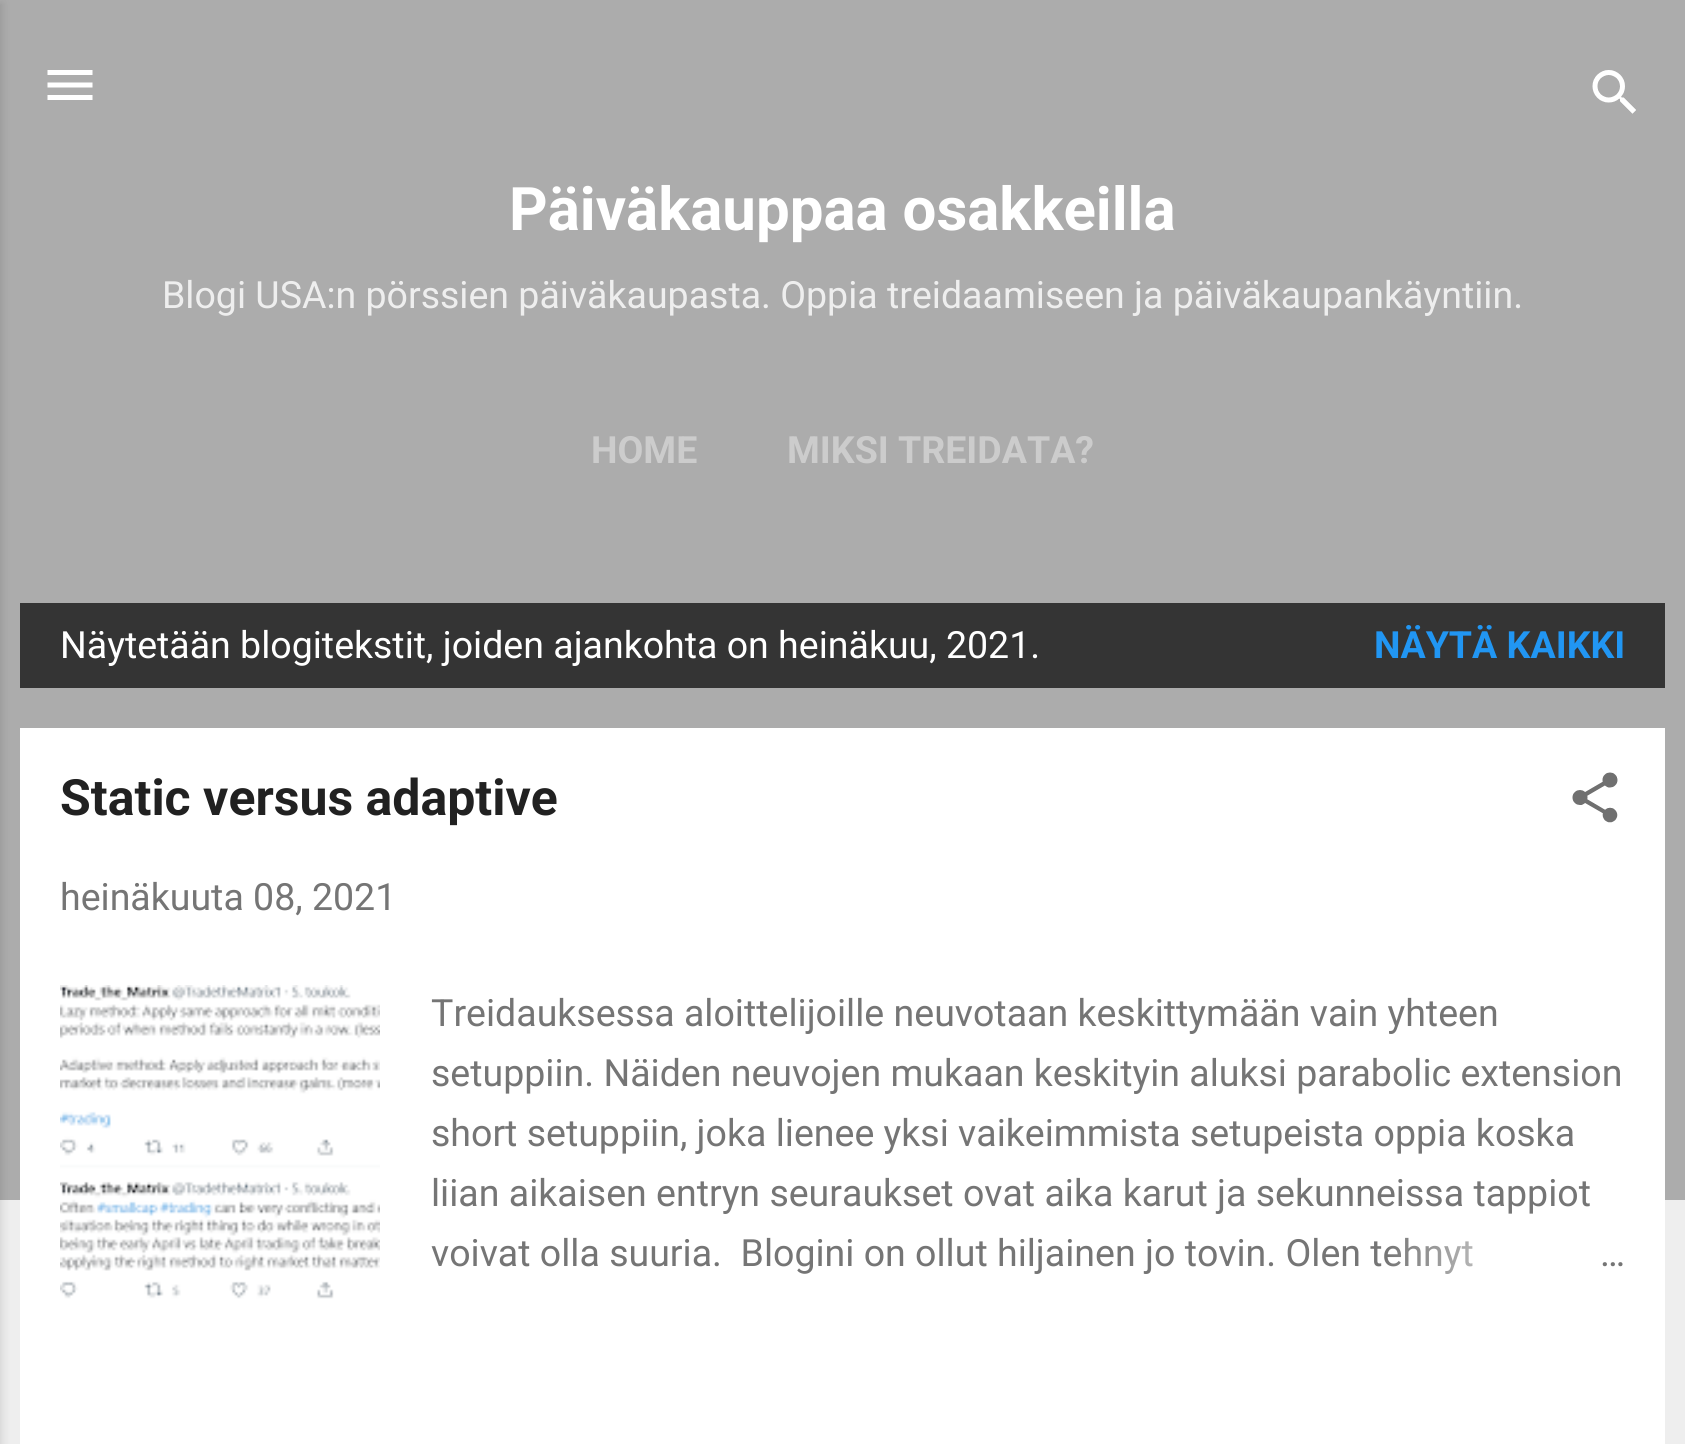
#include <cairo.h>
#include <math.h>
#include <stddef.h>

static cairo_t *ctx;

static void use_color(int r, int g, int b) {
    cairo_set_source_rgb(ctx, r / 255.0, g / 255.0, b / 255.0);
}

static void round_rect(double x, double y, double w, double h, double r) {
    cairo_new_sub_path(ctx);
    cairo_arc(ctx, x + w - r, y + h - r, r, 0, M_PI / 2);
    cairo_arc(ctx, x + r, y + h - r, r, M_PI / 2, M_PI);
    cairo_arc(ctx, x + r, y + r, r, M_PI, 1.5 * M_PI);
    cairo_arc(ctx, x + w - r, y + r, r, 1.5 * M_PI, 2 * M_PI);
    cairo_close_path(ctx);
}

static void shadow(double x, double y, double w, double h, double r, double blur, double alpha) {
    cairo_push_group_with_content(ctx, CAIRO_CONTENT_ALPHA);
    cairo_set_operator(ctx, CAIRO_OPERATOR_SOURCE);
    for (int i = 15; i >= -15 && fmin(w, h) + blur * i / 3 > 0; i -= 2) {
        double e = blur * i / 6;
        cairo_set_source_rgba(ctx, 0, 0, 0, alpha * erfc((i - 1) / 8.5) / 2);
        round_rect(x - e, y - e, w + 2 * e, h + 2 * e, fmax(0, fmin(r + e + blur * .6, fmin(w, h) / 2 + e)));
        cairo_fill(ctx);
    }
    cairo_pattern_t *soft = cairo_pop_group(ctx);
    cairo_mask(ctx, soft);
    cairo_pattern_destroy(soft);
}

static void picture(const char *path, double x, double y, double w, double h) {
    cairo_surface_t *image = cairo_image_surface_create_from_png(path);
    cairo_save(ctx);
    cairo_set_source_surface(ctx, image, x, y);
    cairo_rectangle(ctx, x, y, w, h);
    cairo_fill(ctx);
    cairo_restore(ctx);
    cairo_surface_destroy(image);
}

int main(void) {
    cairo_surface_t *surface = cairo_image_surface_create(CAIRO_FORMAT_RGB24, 1685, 1444);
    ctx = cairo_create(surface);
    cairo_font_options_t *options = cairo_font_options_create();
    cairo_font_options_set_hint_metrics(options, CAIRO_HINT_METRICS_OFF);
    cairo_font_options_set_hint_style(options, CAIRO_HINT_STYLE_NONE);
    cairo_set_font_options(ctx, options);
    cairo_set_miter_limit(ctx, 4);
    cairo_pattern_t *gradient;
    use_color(238, 238, 238);
    cairo_paint(ctx);
    use_color(172, 172, 172);
    cairo_rectangle(ctx, 0, 0, 1685, 1200);
    cairo_fill(ctx);
    use_color(0, 0, 0);
    shadow(-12, 3, 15, 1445, 0, 4, 0.1);
    picture("img1.png", 47, 70, 46, 30);
    picture("img2.png", 1592, 70, 44, 44);
    cairo_select_font_face(ctx, "Roboto", CAIRO_FONT_SLANT_NORMAL, CAIRO_FONT_WEIGHT_BOLD);
    cairo_set_font_size(ctx, 60);
    use_color(255, 255, 255);
    cairo_move_to(ctx, 509, 230);
    cairo_show_text(ctx, "Päiväkauppaa osakkeilla");
    cairo_select_font_face(ctx, "Roboto", CAIRO_FONT_SLANT_NORMAL, CAIRO_FONT_WEIGHT_NORMAL);
    cairo_set_font_size(ctx, 37.5);
    use_color(238, 238, 238);
    cairo_move_to(ctx, 162, 308);
    cairo_show_text(ctx, "Blogi USA:n pörssien päiväkaupasta. Oppia treidaamiseen ja päiväkaupankäyntiin.");
    cairo_select_font_face(ctx, "Roboto", CAIRO_FONT_SLANT_NORMAL, CAIRO_FONT_WEIGHT_BOLD);
    use_color(204, 204, 204);
    cairo_move_to(ctx, 591, 463);
    cairo_show_text(ctx, "HOME");
    cairo_move_to(ctx, 787, 463);
    cairo_show_text(ctx, "MIKSI TREIDATA?");
    use_color(52, 52, 52);
    cairo_rectangle(ctx, 20, 603, 1645, 85);
    cairo_fill(ctx);
    cairo_select_font_face(ctx, "Roboto", CAIRO_FONT_SLANT_NORMAL, CAIRO_FONT_WEIGHT_NORMAL);
    use_color(255, 255, 255);
    cairo_move_to(ctx, 60, 658);
    cairo_show_text(ctx, "Näytetään blogitekstit, joiden ajankohta on heinäkuu, 2021.");
    cairo_select_font_face(ctx, "Roboto", CAIRO_FONT_SLANT_NORMAL, CAIRO_FONT_WEIGHT_BOLD);
    use_color(33, 150, 243);
    cairo_move_to(ctx, 1374, 658);
    cairo_show_text(ctx, "NÄYTÄ KAIKKI");
    use_color(255, 255, 255);
    cairo_rectangle(ctx, 20, 728, 1645, 716);
    cairo_fill(ctx);
    cairo_set_font_size(ctx, 50);
    use_color(33, 33, 33);
    cairo_move_to(ctx, 60, 815);
    cairo_show_text(ctx, "Static versus adaptive");
    picture("img3.png", 1572, 772, 46, 51);
    cairo_select_font_face(ctx, "Roboto", CAIRO_FONT_SLANT_NORMAL, CAIRO_FONT_WEIGHT_NORMAL);
    cairo_set_font_size(ctx, 37.5);
    use_color(117, 117, 117);
    cairo_move_to(ctx, 60, 910);
    cairo_show_text(ctx, "heinäkuuta 08, 2021");
    picture("img4.png", 60, 985, 320, 314);
    cairo_move_to(ctx, 431, 1026);
    cairo_show_text(ctx, "Treidauksessa aloittelijoille neuvotaan keskittymään vain yhteen");
    cairo_move_to(ctx, 431, 1086);
    cairo_show_text(ctx, "setuppiin. Näiden neuvojen mukaan keskityin aluksi parabolic extension");
    cairo_move_to(ctx, 431, 1146);
    cairo_show_text(ctx, "short setuppiin, joka lienee yksi vaikeimmista setupeista oppia koska");
    cairo_move_to(ctx, 431, 1206);
    cairo_show_text(ctx, "liian aikaisen entryn seuraukset ovat aika karut ja sekunneissa tappiot");
    cairo_move_to(ctx, 431, 1266);
    cairo_show_text(ctx, "voivat olla suuria.  Blogini on ollut hiljainen jo tovin. Olen tehnyt");
    gradient = cairo_pattern_create_linear(1625, 1255, 1385, 1255);
    cairo_pattern_add_color_stop_rgba(gradient, 0, 1, 1, 1, 1);
    cairo_pattern_add_color_stop_rgba(gradient, 0.2, 1, 1, 1, 1);
    cairo_pattern_add_color_stop_rgba(gradient, 1, 1, 1, 1, 0);
    cairo_set_source(ctx, gradient);
    cairo_pattern_destroy(gradient);
    cairo_rectangle(ctx, 1389, 1238, 84, 36);
    cairo_fill(ctx);
    use_color(117, 117, 117);
    cairo_move_to(ctx, 1600, 1266);
    cairo_show_text(ctx, "…");
    cairo_surface_write_to_png(surface, "result.png");
    cairo_font_options_destroy(options);
    cairo_destroy(ctx);
    cairo_surface_destroy(surface);
    return 0;
}
